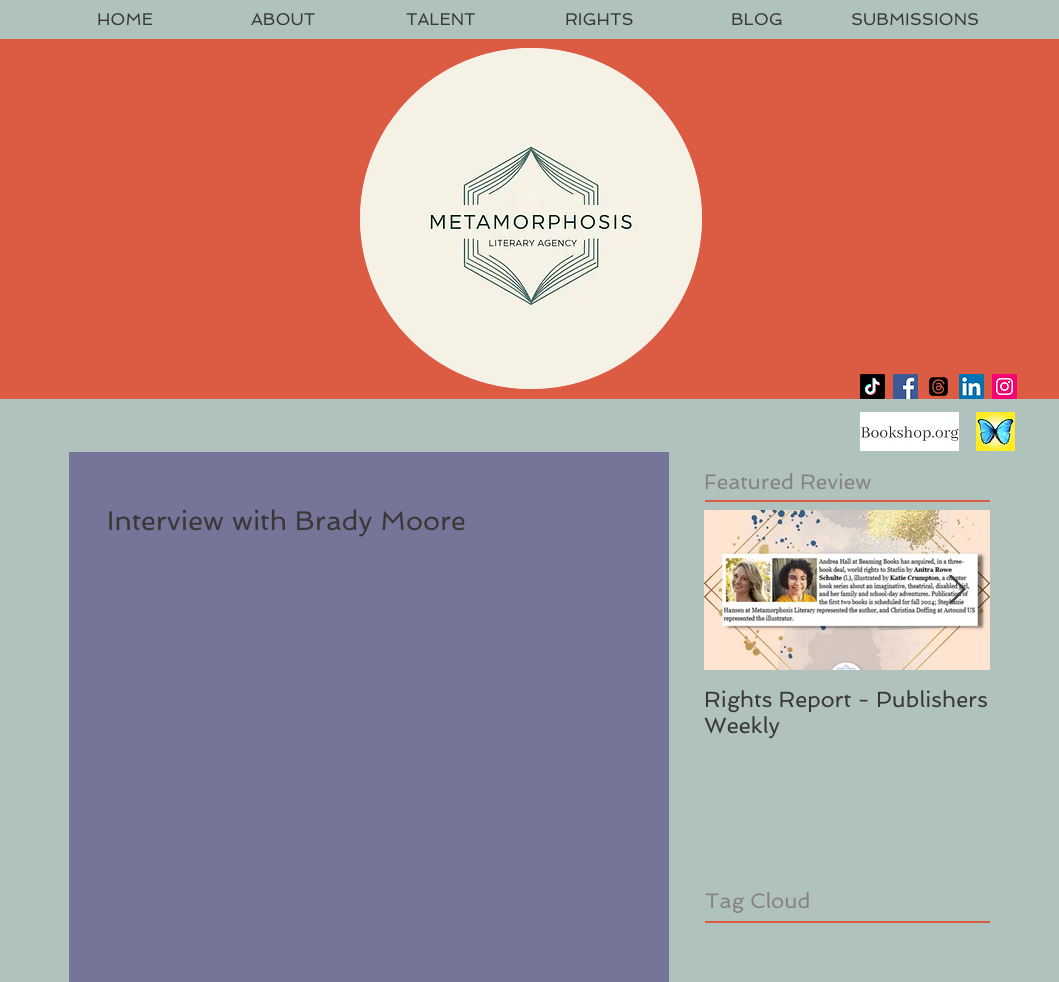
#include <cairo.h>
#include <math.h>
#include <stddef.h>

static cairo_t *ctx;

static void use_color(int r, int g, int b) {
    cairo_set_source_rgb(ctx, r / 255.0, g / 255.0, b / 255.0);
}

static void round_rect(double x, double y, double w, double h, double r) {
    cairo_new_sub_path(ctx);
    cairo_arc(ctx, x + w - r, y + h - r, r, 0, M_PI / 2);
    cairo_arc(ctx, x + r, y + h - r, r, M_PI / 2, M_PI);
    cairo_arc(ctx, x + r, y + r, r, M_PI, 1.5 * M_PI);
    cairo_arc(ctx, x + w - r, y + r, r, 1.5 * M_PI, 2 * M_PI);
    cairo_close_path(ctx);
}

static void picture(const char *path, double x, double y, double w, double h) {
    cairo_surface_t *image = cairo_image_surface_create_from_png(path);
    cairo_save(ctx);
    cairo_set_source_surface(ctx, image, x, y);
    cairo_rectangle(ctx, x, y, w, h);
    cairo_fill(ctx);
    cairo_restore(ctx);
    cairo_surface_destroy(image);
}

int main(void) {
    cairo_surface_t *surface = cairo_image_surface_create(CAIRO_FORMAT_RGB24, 1059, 982);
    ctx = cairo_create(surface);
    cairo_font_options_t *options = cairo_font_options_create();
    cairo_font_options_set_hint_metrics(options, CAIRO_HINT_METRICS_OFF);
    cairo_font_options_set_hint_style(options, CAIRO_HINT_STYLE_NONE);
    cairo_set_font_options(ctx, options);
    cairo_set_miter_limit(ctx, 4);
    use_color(176, 194, 190);
    cairo_paint(ctx);
    cairo_select_font_face(ctx, "Spinnaker", CAIRO_FONT_SLANT_NORMAL, CAIRO_FONT_WEIGHT_NORMAL);
    cairo_set_font_size(ctx, 17);
    use_color(57, 56, 56);
    cairo_move_to(ctx, 97, 25);
    cairo_show_text(ctx, "HOME");
    cairo_move_to(ctx, 251, 25);
    cairo_show_text(ctx, "ABOUT");
    cairo_move_to(ctx, 406, 25);
    cairo_show_text(ctx, "TALENT");
    cairo_move_to(ctx, 565, 25);
    cairo_show_text(ctx, "RIGHTS");
    cairo_move_to(ctx, 731, 25);
    cairo_show_text(ctx, "BLOG");
    cairo_move_to(ctx, 851, 25);
    cairo_show_text(ctx, "SUBMISSIONS");
    use_color(219, 91, 67);
    cairo_rectangle(ctx, 0, 39, 1059, 360);
    cairo_fill(ctx);
    use_color(255, 255, 255);
    round_rect(360, 48, 342, 341, 170.5);
    cairo_fill(ctx);
    picture("img1.png", 360, 48, 342, 341);
    picture("img2.png", 860, 374, 25, 25);
    picture("img3.png", 893, 374, 25, 25);
    picture("img4.png", 928, 377, 20, 19);
    picture("img5.png", 959, 374, 25, 25);
    picture("img6.png", 992, 374, 25, 25);
    picture("img7.png", 860, 412, 99, 39);
    picture("img8.png", 976, 412, 39, 39);
    cairo_set_font_size(ctx, 21);
    use_color(134, 131, 131);
    cairo_move_to(ctx, 704, 489);
    cairo_show_text(ctx, "Featured Review");
    use_color(219, 91, 67);
    cairo_rectangle(ctx, 705, 500, 285, 2);
    cairo_fill(ctx);
    use_color(118, 116, 153);
    cairo_rectangle(ctx, 69, 452, 600, 530);
    cairo_fill(ctx);
    cairo_set_font_size(ctx, 27);
    use_color(57, 56, 56);
    cairo_move_to(ctx, 107, 530);
    cairo_show_text(ctx, "Interview with Brady Moore");
    picture("img10.png", 704, 510, 286, 160);
    picture("img9.png", 949, 575, 17, 29);
    cairo_set_font_size(ctx, 22);
    cairo_move_to(ctx, 704, 707);
    cairo_show_text(ctx, "Rights Report - Publishers");
    cairo_move_to(ctx, 704, 733);
    cairo_show_text(ctx, "Weekly");
    cairo_set_font_size(ctx, 21);
    use_color(134, 131, 131);
    cairo_move_to(ctx, 705, 908);
    cairo_show_text(ctx, "Tag Cloud");
    use_color(219, 91, 67);
    cairo_rectangle(ctx, 705, 921, 285, 2);
    cairo_fill(ctx);
    cairo_surface_write_to_png(surface, "result.png");
    cairo_font_options_destroy(options);
    cairo_destroy(ctx);
    cairo_surface_destroy(surface);
    return 0;
}
